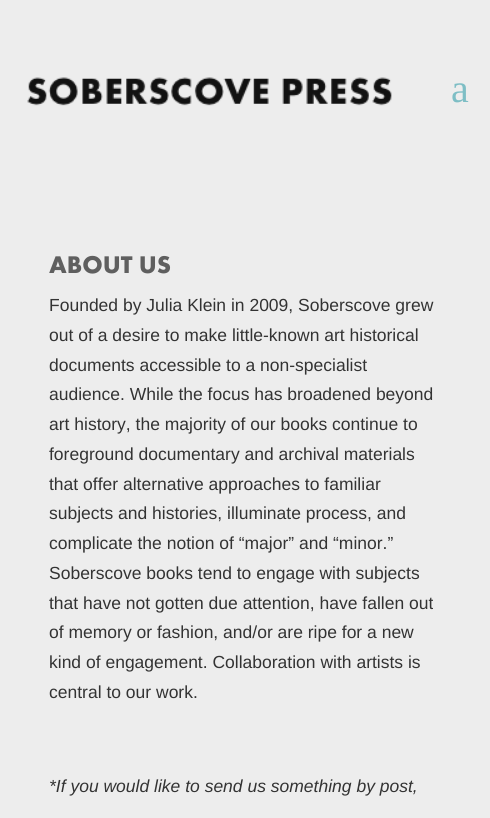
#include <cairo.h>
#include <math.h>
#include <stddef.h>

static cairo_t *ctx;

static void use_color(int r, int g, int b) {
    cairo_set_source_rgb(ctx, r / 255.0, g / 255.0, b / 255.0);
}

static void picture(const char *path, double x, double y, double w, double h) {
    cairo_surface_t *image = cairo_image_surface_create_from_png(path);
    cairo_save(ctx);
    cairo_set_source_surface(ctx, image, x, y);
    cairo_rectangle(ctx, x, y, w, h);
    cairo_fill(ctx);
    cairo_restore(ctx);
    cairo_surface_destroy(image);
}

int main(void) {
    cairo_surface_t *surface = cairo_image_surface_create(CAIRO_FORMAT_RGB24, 490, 818);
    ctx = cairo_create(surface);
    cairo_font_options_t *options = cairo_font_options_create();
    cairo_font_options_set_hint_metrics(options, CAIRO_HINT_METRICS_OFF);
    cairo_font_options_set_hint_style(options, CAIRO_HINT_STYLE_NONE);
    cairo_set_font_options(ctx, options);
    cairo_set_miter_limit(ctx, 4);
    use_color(237, 237, 237);
    cairo_paint(ctx);
    picture("img1.png", 27, 77, 365, 29);
    cairo_select_font_face(ctx, "Liberation Serif", CAIRO_FONT_SLANT_NORMAL, CAIRO_FONT_WEIGHT_NORMAL);
    cairo_set_font_size(ctx, 40);
    use_color(126, 190, 197);
    cairo_move_to(ctx, 451, 102);
    cairo_show_text(ctx, "a");
    cairo_select_font_face(ctx, "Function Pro", CAIRO_FONT_SLANT_NORMAL, CAIRO_FONT_WEIGHT_BOLD);
    cairo_set_font_size(ctx, 25);
    use_color(95, 95, 95);
    cairo_move_to(ctx, 49, 273);
    cairo_show_text(ctx, "ABOUT US");
    cairo_select_font_face(ctx, "Liberation Sans", CAIRO_FONT_SLANT_NORMAL, CAIRO_FONT_WEIGHT_NORMAL);
    cairo_set_font_size(ctx, 17.5);
    use_color(51, 51, 51);
    cairo_move_to(ctx, 49, 311);
    cairo_show_text(ctx, "Founded by Julia Klein in 2009, Soberscove grew");
    cairo_move_to(ctx, 49, 341);
    cairo_show_text(ctx, "out of a desire to make little-known art historical");
    cairo_move_to(ctx, 49, 371);
    cairo_show_text(ctx, "documents accessible to a non-specialist");
    cairo_move_to(ctx, 49, 400);
    cairo_show_text(ctx, "audience. While the focus has broadened beyond");
    cairo_move_to(ctx, 49, 430);
    cairo_show_text(ctx, "art history, the majority of our books continue to");
    cairo_move_to(ctx, 49, 460);
    cairo_show_text(ctx, "foreground documentary and archival materials");
    cairo_move_to(ctx, 49, 490);
    cairo_show_text(ctx, "that offer alternative approaches to familiar");
    cairo_move_to(ctx, 49, 519);
    cairo_show_text(ctx, "subjects and histories, illuminate process, and");
    cairo_move_to(ctx, 49, 549);
    cairo_show_text(ctx, "complicate the notion of “major” and “minor.”");
    cairo_move_to(ctx, 49, 579);
    cairo_show_text(ctx, "Soberscove books tend to engage with subjects");
    cairo_move_to(ctx, 49, 609);
    cairo_show_text(ctx, "that have not gotten due attention, have fallen out");
    cairo_move_to(ctx, 49, 638);
    cairo_show_text(ctx, "of memory or fashion, and/or are ripe for a new");
    cairo_move_to(ctx, 49, 668);
    cairo_show_text(ctx, "kind of engagement. Collaboration with artists is");
    cairo_move_to(ctx, 49, 698);
    cairo_show_text(ctx, "central to our work.");
    cairo_select_font_face(ctx, "Liberation Sans", CAIRO_FONT_SLANT_ITALIC, CAIRO_FONT_WEIGHT_NORMAL);
    cairo_move_to(ctx, 49, 792);
    cairo_show_text(ctx, "*If you would like to send us something by post,");
    cairo_surface_write_to_png(surface, "result.png");
    cairo_font_options_destroy(options);
    cairo_destroy(ctx);
    cairo_surface_destroy(surface);
    return 0;
}
